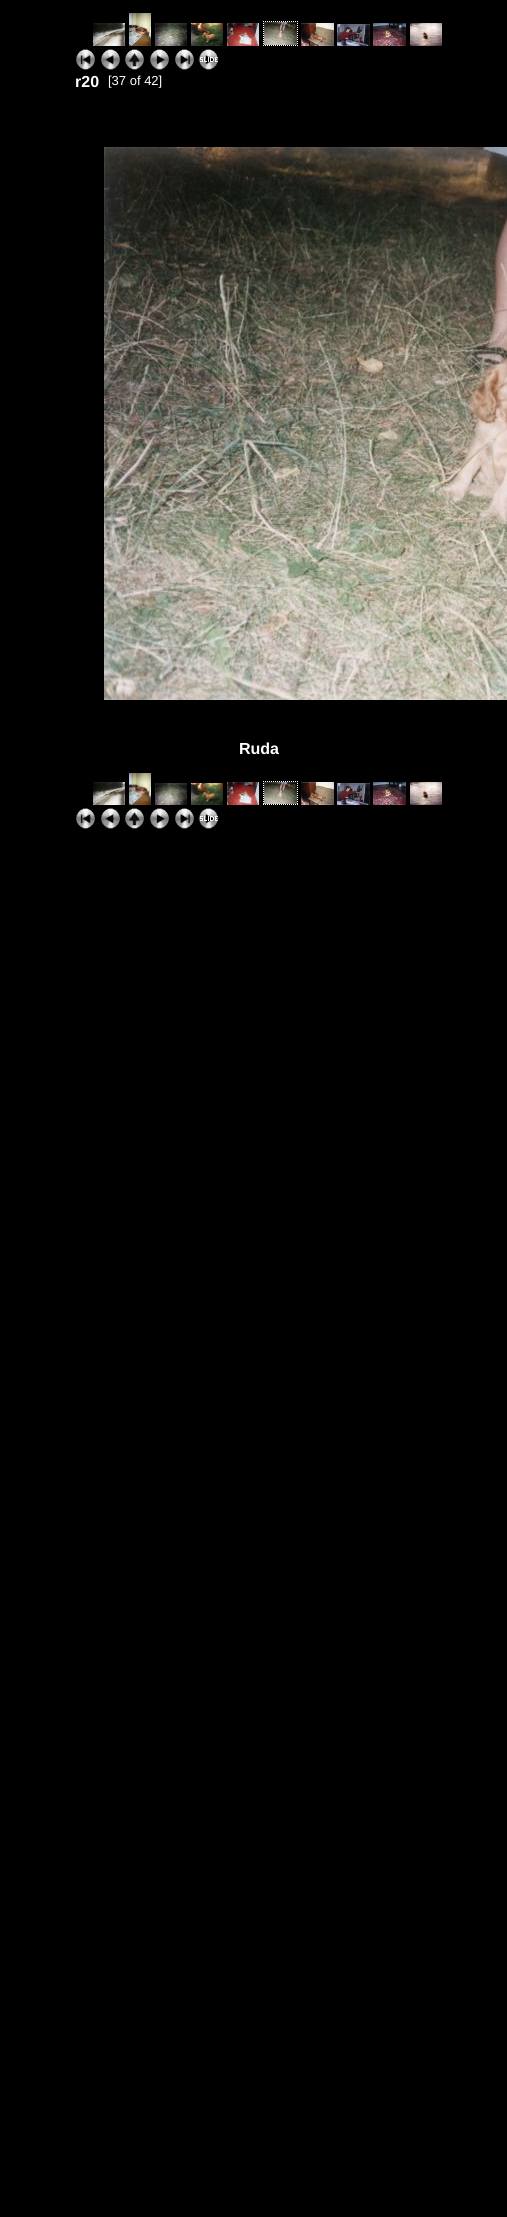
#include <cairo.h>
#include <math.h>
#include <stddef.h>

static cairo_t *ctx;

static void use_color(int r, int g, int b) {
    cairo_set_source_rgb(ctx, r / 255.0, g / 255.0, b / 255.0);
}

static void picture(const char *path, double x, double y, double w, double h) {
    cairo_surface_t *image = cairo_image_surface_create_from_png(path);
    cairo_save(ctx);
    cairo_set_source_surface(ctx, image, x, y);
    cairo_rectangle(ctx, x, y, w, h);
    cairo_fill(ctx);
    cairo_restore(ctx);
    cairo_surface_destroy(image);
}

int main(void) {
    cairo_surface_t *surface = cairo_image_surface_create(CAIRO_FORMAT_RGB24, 507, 2217);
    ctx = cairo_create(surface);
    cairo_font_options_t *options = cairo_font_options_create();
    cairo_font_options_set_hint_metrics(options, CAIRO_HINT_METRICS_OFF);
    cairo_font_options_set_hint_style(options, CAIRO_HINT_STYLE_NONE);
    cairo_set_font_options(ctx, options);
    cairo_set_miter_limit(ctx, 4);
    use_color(0, 0, 0);
    cairo_paint(ctx);
    picture("img1.png", 129, 13, 22, 33);
    cairo_new_path(ctx);
    cairo_move_to(ctx, 263, 21.5);
    cairo_line_to(ctx, 298, 21.5);
    cairo_move_to(ctx, 297.5, 21);
    cairo_line_to(ctx, 297.5, 46);
    cairo_move_to(ctx, 263, 45.5);
    cairo_line_to(ctx, 298, 45.5);
    cairo_move_to(ctx, 263.5, 21);
    cairo_line_to(ctx, 263.5, 46);
    use_color(255, 255, 255);
    cairo_set_line_width(ctx, 1);
    cairo_set_dash(ctx, (double[]){1, 1}, 2, 0);
    cairo_stroke(ctx);
    picture("img2.png", 93, 23, 32, 23);
    picture("img3.png", 155, 23, 32, 23);
    picture("img4.png", 191, 23, 32, 23);
    picture("img5.png", 227, 23, 32, 23);
    picture("img6.png", 264, 22, 33, 23);
    picture("img7.png", 301, 23, 33, 23);
    picture("img8.png", 337, 24, 33, 22);
    picture("img9.png", 373, 23, 33, 23);
    picture("img10.png", 410, 23, 32, 23);
    picture("img11.png", 76, 49, 19, 21);
    picture("img12.png", 101, 49, 19, 21);
    picture("img13.png", 125, 49, 19, 21);
    picture("img14.png", 150, 49, 19, 21);
    picture("img15.png", 175, 49, 19, 21);
    picture("img16.png", 198, 49, 21, 21);
    cairo_select_font_face(ctx, "Liberation Sans", CAIRO_FONT_SLANT_NORMAL, CAIRO_FONT_WEIGHT_BOLD);
    cairo_set_font_size(ctx, 16);
    cairo_move_to(ctx, 75, 87);
    cairo_show_text(ctx, "r20");
    cairo_select_font_face(ctx, "Liberation Sans", CAIRO_FONT_SLANT_NORMAL, CAIRO_FONT_WEIGHT_NORMAL);
    cairo_set_font_size(ctx, 13);
    cairo_move_to(ctx, 108, 85);
    cairo_show_text(ctx, "[37 of 42]");
    picture("img17.png", 104, 147, 403, 553);
    cairo_select_font_face(ctx, "Liberation Sans", CAIRO_FONT_SLANT_NORMAL, CAIRO_FONT_WEIGHT_BOLD);
    cairo_set_font_size(ctx, 16);
    cairo_move_to(ctx, 239, 754);
    cairo_show_text(ctx, "Ruda");
    picture("img2.png", 93, 782, 32, 23);
    picture("img18.png", 129, 773, 22, 32);
    picture("img5.png", 227, 782, 32, 23);
    cairo_new_path(ctx);
    cairo_move_to(ctx, 263, 781.5);
    cairo_line_to(ctx, 298, 781.5);
    cairo_move_to(ctx, 297.5, 781);
    cairo_line_to(ctx, 297.5, 805);
    cairo_move_to(ctx, 263, 804.5);
    cairo_line_to(ctx, 298, 804.5);
    cairo_move_to(ctx, 263.5, 781);
    cairo_line_to(ctx, 263.5, 805);
    cairo_stroke(ctx);
    picture("img19.png", 155, 783, 32, 22);
    picture("img20.png", 191, 783, 32, 22);
    picture("img21.png", 264, 782, 33, 22);
    picture("img7.png", 301, 782, 33, 23);
    picture("img8.png", 337, 783, 33, 22);
    picture("img9.png", 373, 782, 33, 23);
    picture("img10.png", 410, 782, 32, 23);
    picture("img11.png", 76, 808, 19, 21);
    picture("img12.png", 101, 808, 19, 21);
    picture("img13.png", 125, 808, 19, 21);
    picture("img14.png", 150, 808, 19, 21);
    picture("img15.png", 175, 808, 19, 21);
    picture("img16.png", 198, 808, 21, 21);
    cairo_surface_write_to_png(surface, "result.png");
    cairo_font_options_destroy(options);
    cairo_destroy(ctx);
    cairo_surface_destroy(surface);
    return 0;
}
